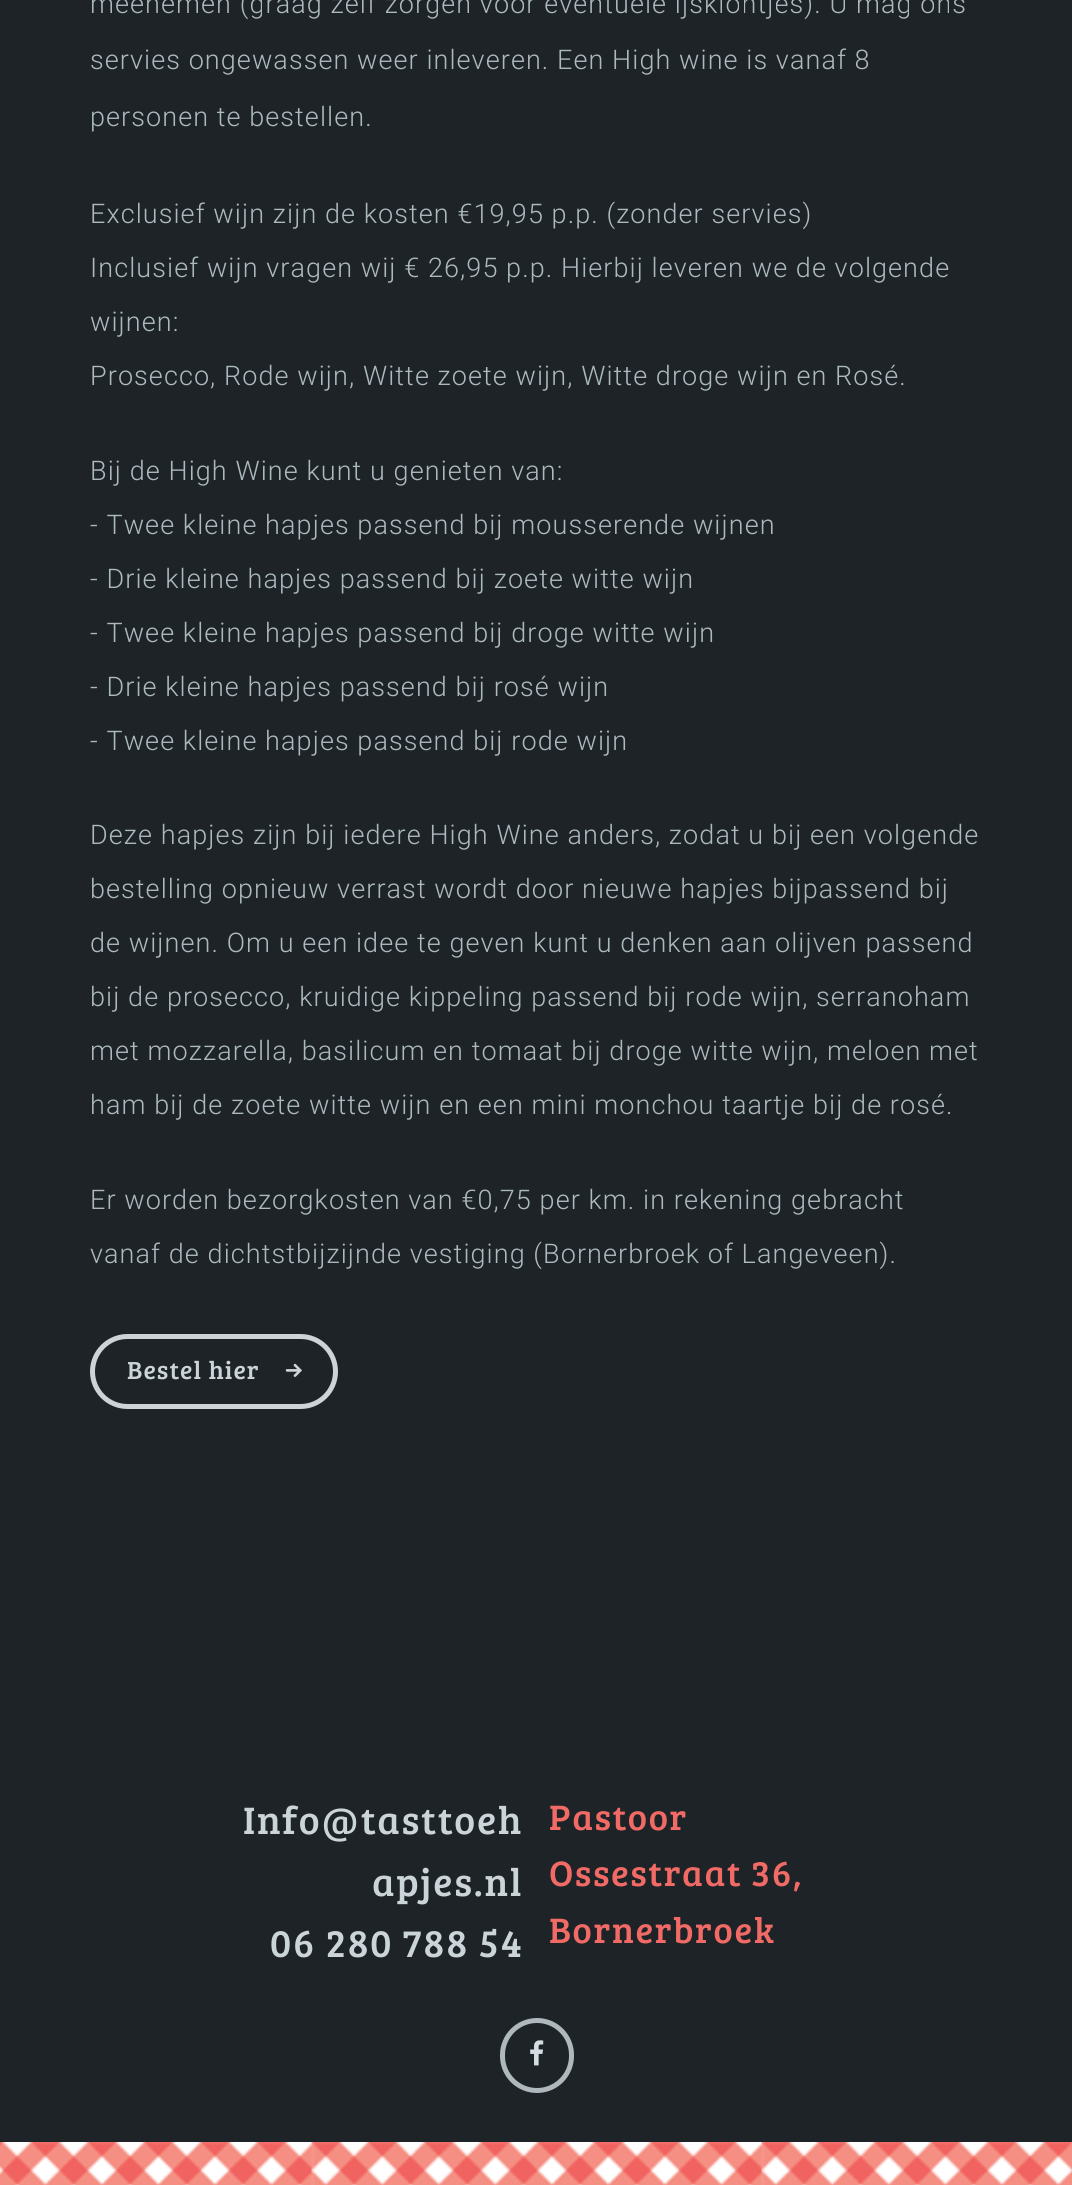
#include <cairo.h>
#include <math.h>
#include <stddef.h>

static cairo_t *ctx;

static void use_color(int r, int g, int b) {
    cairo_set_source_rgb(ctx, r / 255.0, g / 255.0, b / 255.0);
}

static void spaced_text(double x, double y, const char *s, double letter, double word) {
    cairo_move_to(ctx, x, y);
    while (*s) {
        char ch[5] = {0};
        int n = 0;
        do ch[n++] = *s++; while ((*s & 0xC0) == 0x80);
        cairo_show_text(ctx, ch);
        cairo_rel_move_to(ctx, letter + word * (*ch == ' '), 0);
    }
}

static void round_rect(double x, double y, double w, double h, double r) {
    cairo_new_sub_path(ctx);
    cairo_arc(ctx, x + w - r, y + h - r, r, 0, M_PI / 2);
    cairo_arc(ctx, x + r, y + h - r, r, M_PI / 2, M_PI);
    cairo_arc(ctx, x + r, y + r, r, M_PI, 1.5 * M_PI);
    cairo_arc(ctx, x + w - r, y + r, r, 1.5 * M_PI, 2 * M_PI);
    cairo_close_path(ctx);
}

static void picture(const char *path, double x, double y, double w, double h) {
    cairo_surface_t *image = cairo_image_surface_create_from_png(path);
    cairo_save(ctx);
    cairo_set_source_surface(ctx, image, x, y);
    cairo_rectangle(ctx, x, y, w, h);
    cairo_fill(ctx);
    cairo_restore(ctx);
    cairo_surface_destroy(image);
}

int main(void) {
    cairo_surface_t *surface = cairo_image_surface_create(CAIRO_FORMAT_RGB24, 1072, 2185);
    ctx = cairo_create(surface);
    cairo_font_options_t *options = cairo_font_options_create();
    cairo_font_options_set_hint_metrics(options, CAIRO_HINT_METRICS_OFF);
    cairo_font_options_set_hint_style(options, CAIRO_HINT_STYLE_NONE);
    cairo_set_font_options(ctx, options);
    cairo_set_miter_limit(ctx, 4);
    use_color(29, 35, 38);
    cairo_paint(ctx);
    cairo_select_font_face(ctx, "Roboto Light", CAIRO_FONT_SLANT_NORMAL, CAIRO_FONT_WEIGHT_NORMAL);
    cairo_set_font_size(ctx, 27);
    use_color(172, 185, 191);
    spaced_text(90, 13, "meenemen (graag zelf zorgen voor eventuele ijsklontjes). U mag ons", 1.08, 0);
    spaced_text(90, 69, "servies ongewassen weer inleveren. Een High wine is vanaf 8", 1.08, 0);
    spaced_text(90, 126, "personen te bestellen.", 1.08, 0);
    spaced_text(90, 223, "Exclusief wijn zijn de kosten €19,95 p.p. (zonder servies)", 1.08, 0);
    spaced_text(90, 277, "Inclusief wijn vragen wij € 26,95 p.p. Hierbij leveren we de volgende", 1.08, 0);
    spaced_text(90, 331, "wijnen:", 1.08, 0);
    spaced_text(90, 385, "Prosecco, Rode wijn, Witte zoete wijn, Witte droge wijn en Rosé.", 1.08, 0);
    spaced_text(90, 480, "Bij de High Wine kunt u genieten van:", 1.08, 0);
    spaced_text(90, 534, "- Twee kleine hapjes passend bij mousserende wijnen", 1.08, 0);
    spaced_text(90, 588, "- Drie kleine hapjes passend bij zoete witte wijn", 1.08, 0);
    spaced_text(90, 642, "- Twee kleine hapjes passend bij droge witte wijn", 1.08, 0);
    spaced_text(90, 696, "- Drie kleine hapjes passend bij rosé wijn", 1.08, 0);
    spaced_text(90, 750, "- Twee kleine hapjes passend bij rode wijn", 1.08, 0);
    spaced_text(90, 844, "Deze hapjes zijn bij iedere High Wine anders, zodat u bij een volgende", 1.08, 0);
    spaced_text(90, 898, "bestelling opnieuw verrast wordt door nieuwe hapjes bijpassend bij", 1.08, 0);
    spaced_text(90, 952, "de wijnen. Om u een idee te geven kunt u denken aan olijven passend", 1.08, 0);
    spaced_text(90, 1006, "bij de prosecco, kruidige kippeling passend bij rode wijn, serranoham", 1.08, 0);
    spaced_text(90, 1060, "met mozzarella, basilicum en tomaat bij droge witte wijn, meloen met", 1.08, 0);
    spaced_text(90, 1114, "ham bij de zoete witte wijn en een mini monchou taartje bij de rosé.", 1.08, 0);
    spaced_text(90, 1209, "Er worden bezorgkosten van €0,75 per km. in rekening gebracht", 1.08, 0);
    spaced_text(90, 1263, "vanaf de dichtstbijzijnde vestiging (Bornerbroek of Langeveen).", 1.08, 0);
    round_rect(92.5, 1336.5, 243, 70, 35);
    use_color(205, 211, 214);
    cairo_set_line_width(ctx, 5);
    cairo_stroke(ctx);
    cairo_select_font_face(ctx, "Bree Serif", CAIRO_FONT_SLANT_NORMAL, CAIRO_FONT_WEIGHT_NORMAL);
    cairo_set_font_size(ctx, 25.5);
    use_color(203, 212, 217);
    spaced_text(127, 1379, "Bestel hier", 1.08, 0);
    picture("img1.png", 285, 1363, 17, 14);
    cairo_set_font_size(ctx, 39.5);
    spaced_text(243, 1834, "Info@tasttoeh", 1.75, 0);
    spaced_text(372, 1896, "apjes.nl", 1.75, 0);
    spaced_text(270, 1957, "06 280 788 54", 1.75, 0);
    cairo_set_font_size(ctx, 36.5);
    use_color(242, 106, 102);
    spaced_text(549, 1830, "Pastoor", 1.6, 0);
    spaced_text(549, 1886, "Ossestraat 36,", 1.6, 0);
    spaced_text(549, 1943, "Bornerbroek", 1.6, 0);
    round_rect(502.5, 2020.5, 69, 70, 34.5);
    use_color(175, 184, 188);
    cairo_stroke(ctx);
    picture("img2.png", 530, 2040, 14, 26);
    picture("img3.png", 0, 2142, 1072, 43);
    cairo_surface_write_to_png(surface, "result.png");
    cairo_font_options_destroy(options);
    cairo_destroy(ctx);
    cairo_surface_destroy(surface);
    return 0;
}
